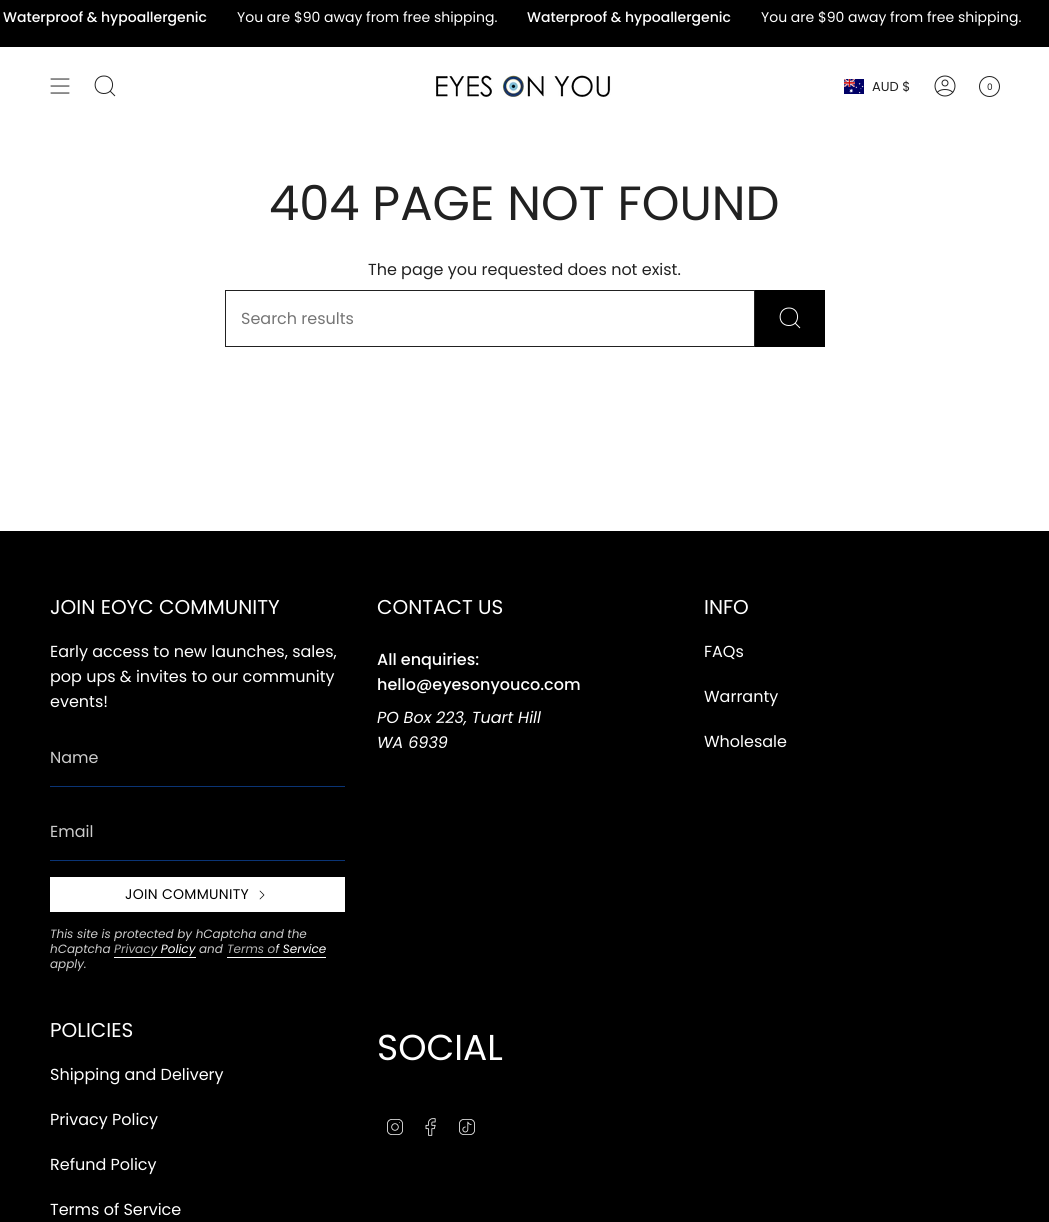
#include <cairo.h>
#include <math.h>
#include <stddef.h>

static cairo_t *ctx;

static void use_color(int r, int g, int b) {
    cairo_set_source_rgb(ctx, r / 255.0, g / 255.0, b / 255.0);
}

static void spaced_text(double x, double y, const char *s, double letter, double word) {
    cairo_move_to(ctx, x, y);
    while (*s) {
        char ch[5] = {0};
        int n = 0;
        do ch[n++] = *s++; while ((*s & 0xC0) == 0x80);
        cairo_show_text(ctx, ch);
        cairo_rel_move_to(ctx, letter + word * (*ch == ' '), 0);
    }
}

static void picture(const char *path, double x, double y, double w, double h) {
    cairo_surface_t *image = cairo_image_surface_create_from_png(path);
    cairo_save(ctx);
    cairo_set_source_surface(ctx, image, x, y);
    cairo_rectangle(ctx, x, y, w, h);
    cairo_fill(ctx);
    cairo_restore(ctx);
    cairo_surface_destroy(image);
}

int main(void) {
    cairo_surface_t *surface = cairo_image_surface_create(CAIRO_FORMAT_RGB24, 1049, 1222);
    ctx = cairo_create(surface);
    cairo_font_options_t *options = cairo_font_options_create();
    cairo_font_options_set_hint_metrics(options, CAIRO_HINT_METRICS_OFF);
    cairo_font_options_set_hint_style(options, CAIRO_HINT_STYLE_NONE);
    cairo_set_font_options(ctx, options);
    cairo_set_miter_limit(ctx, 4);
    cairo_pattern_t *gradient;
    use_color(255, 255, 255);
    cairo_paint(ctx);
    use_color(0, 0, 0);
    cairo_rectangle(ctx, 0, 0, 1049, 47);
    cairo_fill(ctx);
    cairo_select_font_face(ctx, "Poppins Medium", CAIRO_FONT_SLANT_NORMAL, CAIRO_FONT_WEIGHT_NORMAL);
    cairo_set_font_size(ctx, 14);
    use_color(255, 255, 255);
    cairo_move_to(ctx, 3, 22);
    cairo_show_text(ctx, "Waterproof & hypoallergenic");
    cairo_select_font_face(ctx, "Poppins", CAIRO_FONT_SLANT_NORMAL, CAIRO_FONT_WEIGHT_NORMAL);
    cairo_move_to(ctx, 237, 22);
    cairo_show_text(ctx, "You are $90 away from free shipping.");
    cairo_select_font_face(ctx, "Poppins Medium", CAIRO_FONT_SLANT_NORMAL, CAIRO_FONT_WEIGHT_NORMAL);
    cairo_move_to(ctx, 527, 22);
    cairo_show_text(ctx, "Waterproof & hypoallergenic");
    cairo_select_font_face(ctx, "Poppins", CAIRO_FONT_SLANT_NORMAL, CAIRO_FONT_WEIGHT_NORMAL);
    cairo_move_to(ctx, 761, 22);
    cairo_show_text(ctx, "You are $90 away from free shipping.");
    cairo_new_path(ctx);
    cairo_move_to(ctx, 51, 79);
    cairo_line_to(ctx, 69, 79);
    cairo_move_to(ctx, 51, 86);
    cairo_line_to(ctx, 69, 86);
    cairo_move_to(ctx, 51, 93);
    cairo_line_to(ctx, 69, 93);
    use_color(33, 33, 33);
    cairo_set_line_width(ctx, 1);
    cairo_set_line_cap(ctx, CAIRO_LINE_CAP_ROUND);
    cairo_set_line_join(ctx, CAIRO_LINE_JOIN_ROUND);
    cairo_stroke(ctx);
    cairo_new_path(ctx);
    cairo_move_to(ctx, 104, 76);
    cairo_curve_to(ctx, 115.5, 76, 115.5, 94, 103.5, 93.5);
    cairo_curve_to(ctx, 92, 93, 92.5, 76, 104, 76);
    cairo_close_path(ctx);
    cairo_move_to(ctx, 110, 91);
    cairo_line_to(ctx, 115, 96);
    cairo_set_line_cap(ctx, CAIRO_LINE_CAP_BUTT);
    cairo_set_line_join(ctx, CAIRO_LINE_JOIN_MITER);
    cairo_stroke(ctx);
    picture("img1.png", 436, 75, 175, 22);
    picture("img2.png", 844, 79, 20, 15);
    cairo_set_font_size(ctx, 13);
    cairo_move_to(ctx, 872, 91);
    cairo_show_text(ctx, "AUD $");
    picture("img3.png", 934, 75, 22, 22);
    cairo_arc(ctx, 989.5, 86.5, 10, 0, 2 * M_PI);
    cairo_stroke(ctx);
    cairo_set_font_size(ctx, 9);
    cairo_move_to(ctx, 987, 90);
    cairo_show_text(ctx, "0");
    cairo_set_font_size(ctx, 48);
    cairo_move_to(ctx, 269, 220);
    cairo_show_text(ctx, "404 PAGE NOT FOUND");
    cairo_set_font_size(ctx, 16);
    cairo_move_to(ctx, 368, 275);
    cairo_show_text(ctx, "The page you requested does not exist.");
    cairo_rectangle(ctx, 225.5, 290.5, 529, 56);
    cairo_stroke(ctx);
    use_color(117, 117, 117);
    cairo_move_to(ctx, 241, 324);
    cairo_show_text(ctx, "Search results");
    use_color(0, 0, 0);
    cairo_rectangle(ctx, 755, 290, 70, 57);
    cairo_fill(ctx);
    cairo_new_path(ctx);
    cairo_move_to(ctx, 789, 308);
    cairo_curve_to(ctx, 800.5, 308, 800.5, 326, 788.5, 325.5);
    cairo_curve_to(ctx, 777, 325, 777.5, 308, 789, 308);
    cairo_close_path(ctx);
    cairo_move_to(ctx, 795, 323);
    cairo_line_to(ctx, 800, 328);
    use_color(255, 255, 255);
    cairo_stroke(ctx);
    use_color(0, 0, 0);
    cairo_rectangle(ctx, 0, 531, 1049, 691);
    cairo_fill(ctx);
    cairo_set_font_size(ctx, 20);
    use_color(255, 255, 255);
    cairo_move_to(ctx, 50, 614);
    cairo_show_text(ctx, "JOIN EOYC COMMUNITY");
    cairo_set_font_size(ctx, 16);
    cairo_move_to(ctx, 50, 657);
    cairo_show_text(ctx, "Early access to new launches, sales,");
    cairo_move_to(ctx, 50, 682);
    cairo_show_text(ctx, "pop ups & invites to our community");
    cairo_move_to(ctx, 50, 707);
    cairo_show_text(ctx, "events!");
    use_color(10, 52, 117);
    cairo_rectangle(ctx, 50, 786, 295, 1);
    cairo_fill(ctx);
    use_color(204, 204, 204);
    cairo_move_to(ctx, 50, 763);
    cairo_show_text(ctx, "Name");
    use_color(10, 52, 117);
    cairo_rectangle(ctx, 50, 860, 295, 1);
    cairo_fill(ctx);
    use_color(204, 204, 204);
    cairo_move_to(ctx, 50, 837);
    cairo_show_text(ctx, "Email");
    use_color(255, 255, 255);
    cairo_rectangle(ctx, 50, 877, 295, 35);
    cairo_fill(ctx);
    cairo_set_font_size(ctx, 14);
    use_color(0, 0, 0);
    spaced_text(125, 899, "JOIN COMMUNITY", 0.3, 0);
    cairo_new_path(ctx);
    cairo_move_to(ctx, 260, 891);
    cairo_line_to(ctx, 264, 895);
    cairo_line_to(ctx, 260, 899);
    cairo_set_line_width(ctx, 0.7);
    cairo_set_line_cap(ctx, CAIRO_LINE_CAP_ROUND);
    cairo_set_line_join(ctx, CAIRO_LINE_JOIN_ROUND);
    cairo_stroke(ctx);
    cairo_select_font_face(ctx, "Poppins", CAIRO_FONT_SLANT_ITALIC, CAIRO_FONT_WEIGHT_NORMAL);
    cairo_set_font_size(ctx, 12);
    use_color(204, 204, 204);
    cairo_move_to(ctx, 50, 938);
    cairo_show_text(ctx, "This site is protected by hCaptcha and the");
    cairo_move_to(ctx, 50, 953);
    cairo_show_text(ctx, "hCaptcha");
    gradient = cairo_pattern_create_linear(114, 949, 196, 949);
    cairo_pattern_add_color_stop_rgba(gradient, 0, 0.702, 0.702, 0.702, 1);
    cairo_pattern_add_color_stop_rgba(gradient, 0.5, 0.702, 0.702, 0.702, 1);
    cairo_pattern_add_color_stop_rgba(gradient, 0.5, 1, 1, 1, 1);
    cairo_pattern_add_color_stop_rgba(gradient, 1, 1, 1, 1, 1);
    cairo_set_source(ctx, gradient);
    cairo_pattern_destroy(gradient);
    cairo_move_to(ctx, 114, 953);
    cairo_show_text(ctx, "Privacy Policy");
    use_color(255, 255, 255);
    cairo_rectangle(ctx, 114, 957, 82, 1);
    cairo_fill(ctx);
    use_color(204, 204, 204);
    cairo_move_to(ctx, 199, 953);
    cairo_show_text(ctx, "and");
    gradient = cairo_pattern_create_linear(227, 949, 326, 949);
    cairo_pattern_add_color_stop_rgba(gradient, 0, 0.702, 0.702, 0.702, 1);
    cairo_pattern_add_color_stop_rgba(gradient, 0.5, 0.702, 0.702, 0.702, 1);
    cairo_pattern_add_color_stop_rgba(gradient, 0.5, 1, 1, 1, 1);
    cairo_pattern_add_color_stop_rgba(gradient, 1, 1, 1, 1, 1);
    cairo_set_source(ctx, gradient);
    cairo_pattern_destroy(gradient);
    cairo_move_to(ctx, 227, 953);
    cairo_show_text(ctx, "Terms of Service");
    use_color(255, 255, 255);
    cairo_rectangle(ctx, 227, 957, 99, 1);
    cairo_fill(ctx);
    use_color(204, 204, 204);
    cairo_move_to(ctx, 50, 968);
    cairo_show_text(ctx, "apply.");
    cairo_select_font_face(ctx, "Poppins", CAIRO_FONT_SLANT_NORMAL, CAIRO_FONT_WEIGHT_NORMAL);
    cairo_set_font_size(ctx, 20);
    use_color(255, 255, 255);
    cairo_move_to(ctx, 377, 614);
    cairo_show_text(ctx, "CONTACT US");
    cairo_select_font_face(ctx, "Poppins Medium", CAIRO_FONT_SLANT_NORMAL, CAIRO_FONT_WEIGHT_NORMAL);
    cairo_set_font_size(ctx, 16);
    cairo_move_to(ctx, 377, 665);
    cairo_show_text(ctx, "All enquiries:");
    cairo_move_to(ctx, 377, 690);
    cairo_show_text(ctx, "hello@eyesonyouco.com");
    cairo_select_font_face(ctx, "Poppins", CAIRO_FONT_SLANT_ITALIC, CAIRO_FONT_WEIGHT_NORMAL);
    cairo_move_to(ctx, 377, 723);
    cairo_show_text(ctx, "PO Box 223, Tuart Hill");
    cairo_move_to(ctx, 377, 748);
    cairo_show_text(ctx, "WA 6939");
    cairo_select_font_face(ctx, "Poppins", CAIRO_FONT_SLANT_NORMAL, CAIRO_FONT_WEIGHT_NORMAL);
    cairo_set_font_size(ctx, 20);
    cairo_move_to(ctx, 704, 614);
    cairo_show_text(ctx, "INFO");
    cairo_set_font_size(ctx, 16);
    cairo_move_to(ctx, 704, 657);
    cairo_show_text(ctx, "FAQs");
    cairo_move_to(ctx, 704, 702);
    cairo_show_text(ctx, "Warranty");
    cairo_move_to(ctx, 704, 747);
    cairo_show_text(ctx, "Wholesale");
    cairo_set_font_size(ctx, 20);
    cairo_move_to(ctx, 50, 1037);
    cairo_show_text(ctx, "POLICIES");
    cairo_set_font_size(ctx, 16);
    cairo_move_to(ctx, 50, 1080);
    cairo_show_text(ctx, "Shipping and Delivery");
    cairo_move_to(ctx, 50, 1125);
    cairo_show_text(ctx, "Privacy Policy");
    cairo_move_to(ctx, 50, 1170);
    cairo_show_text(ctx, "Refund Policy");
    cairo_move_to(ctx, 50, 1215);
    cairo_show_text(ctx, "Terms of Service");
    cairo_set_font_size(ctx, 36);
    cairo_move_to(ctx, 377, 1060);
    cairo_show_text(ctx, "SOCIAL");
    picture("img4.png", 387, 1119, 16, 16);
    picture("img5.png", 425, 1118, 11, 18);
    picture("img6.png", 459, 1119, 16, 16);
    cairo_surface_write_to_png(surface, "result.png");
    cairo_font_options_destroy(options);
    cairo_destroy(ctx);
    cairo_surface_destroy(surface);
    return 0;
}
